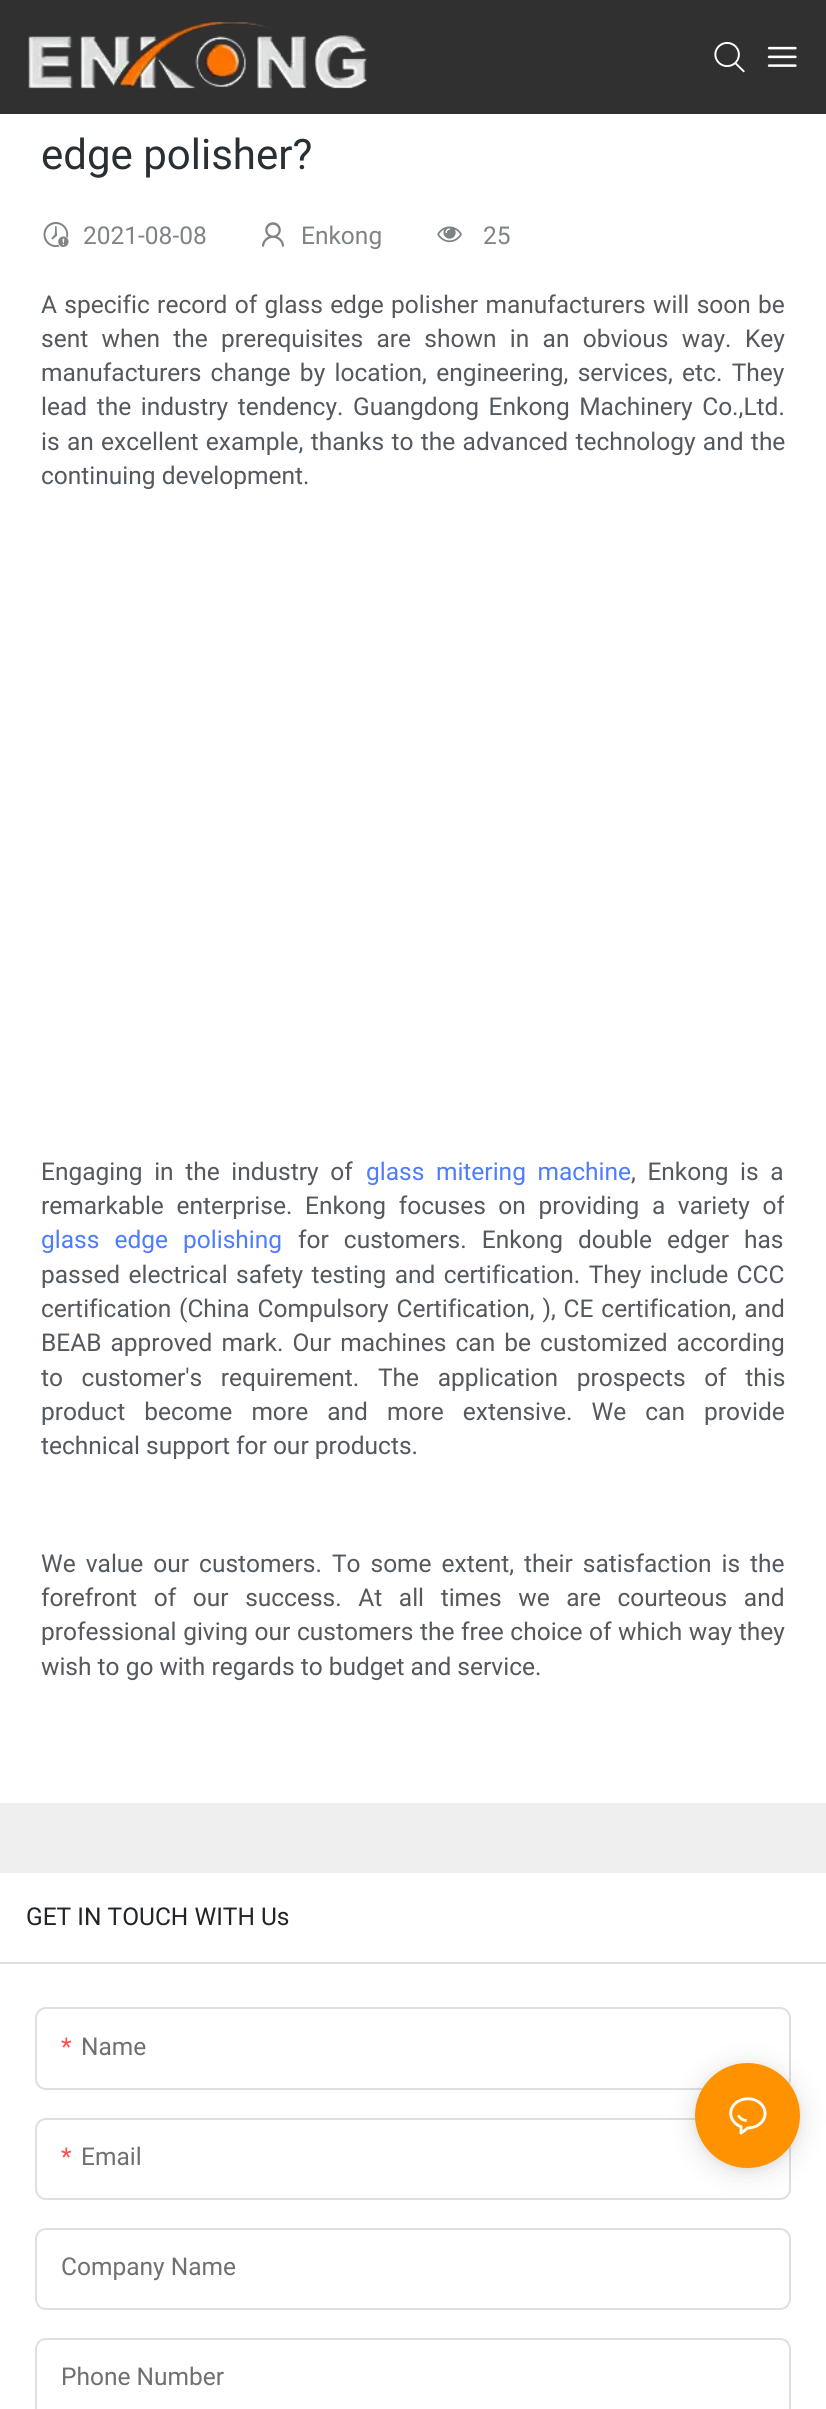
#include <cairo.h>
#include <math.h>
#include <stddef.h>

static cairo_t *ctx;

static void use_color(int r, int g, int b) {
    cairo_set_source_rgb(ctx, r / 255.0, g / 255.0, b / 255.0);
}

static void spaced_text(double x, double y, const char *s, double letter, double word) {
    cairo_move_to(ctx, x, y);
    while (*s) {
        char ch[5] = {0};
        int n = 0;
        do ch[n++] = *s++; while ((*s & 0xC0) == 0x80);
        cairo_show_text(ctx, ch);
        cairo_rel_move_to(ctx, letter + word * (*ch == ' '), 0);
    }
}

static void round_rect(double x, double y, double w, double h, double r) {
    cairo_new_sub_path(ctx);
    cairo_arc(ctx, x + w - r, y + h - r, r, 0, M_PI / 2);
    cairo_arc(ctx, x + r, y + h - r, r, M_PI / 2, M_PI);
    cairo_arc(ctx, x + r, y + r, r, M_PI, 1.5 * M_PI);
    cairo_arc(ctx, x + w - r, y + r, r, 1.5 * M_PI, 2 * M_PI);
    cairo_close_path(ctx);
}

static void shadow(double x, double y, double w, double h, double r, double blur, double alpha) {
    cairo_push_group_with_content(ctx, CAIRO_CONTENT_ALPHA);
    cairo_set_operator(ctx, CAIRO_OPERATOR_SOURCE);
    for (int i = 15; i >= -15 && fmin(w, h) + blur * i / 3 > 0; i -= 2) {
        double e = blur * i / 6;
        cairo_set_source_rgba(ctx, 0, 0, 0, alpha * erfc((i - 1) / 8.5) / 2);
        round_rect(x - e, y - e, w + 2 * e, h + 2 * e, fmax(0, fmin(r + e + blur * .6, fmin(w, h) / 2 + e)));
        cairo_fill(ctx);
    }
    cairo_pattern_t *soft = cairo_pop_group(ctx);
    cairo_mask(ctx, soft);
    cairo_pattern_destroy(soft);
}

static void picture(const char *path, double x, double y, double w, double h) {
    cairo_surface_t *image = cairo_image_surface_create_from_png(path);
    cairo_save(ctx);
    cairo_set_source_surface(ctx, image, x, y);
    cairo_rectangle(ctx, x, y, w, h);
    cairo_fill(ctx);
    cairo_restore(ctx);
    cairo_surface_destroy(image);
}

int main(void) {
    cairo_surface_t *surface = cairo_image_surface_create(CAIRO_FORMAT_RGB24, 826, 2409);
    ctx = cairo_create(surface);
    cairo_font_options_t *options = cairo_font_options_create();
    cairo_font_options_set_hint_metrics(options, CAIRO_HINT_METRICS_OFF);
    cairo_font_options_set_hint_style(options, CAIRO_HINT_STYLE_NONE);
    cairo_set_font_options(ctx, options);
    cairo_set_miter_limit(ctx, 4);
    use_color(239, 239, 239);
    cairo_paint(ctx);
    use_color(48, 48, 48);
    cairo_rectangle(ctx, 0, 0, 826, 114);
    cairo_fill(ctx);
    picture("img1.png", 28, 22, 339, 67);
    picture("img2.png", 714, 42, 31, 31);
    picture("img3.png", 767, 46, 30, 21);
    use_color(255, 255, 255);
    cairo_rectangle(ctx, 0, 114, 826, 1689);
    cairo_fill(ctx);
    cairo_select_font_face(ctx, "Roboto", CAIRO_FONT_SLANT_NORMAL, CAIRO_FONT_WEIGHT_NORMAL);
    cairo_set_font_size(ctx, 42);
    use_color(40, 48, 54);
    cairo_move_to(ctx, 41, 169);
    cairo_show_text(ctx, "edge polisher?");
    picture("img4.png", 43, 222, 26, 26);
    cairo_set_font_size(ctx, 24.5);
    use_color(126, 131, 134);
    cairo_move_to(ctx, 83, 244);
    cairo_show_text(ctx, "2021-08-08");
    picture("img5.png", 261, 222, 24, 25);
    cairo_move_to(ctx, 301, 244);
    cairo_show_text(ctx, "Enkong");
    picture("img6.png", 437, 226, 25, 17);
    cairo_move_to(ctx, 483, 244);
    cairo_show_text(ctx, "25");
    use_color(83, 89, 94);
    spaced_text(41, 313, "A specific record of glass edge polisher manufacturers will soon be", 0, 1.25);
    spaced_text(41, 347, "sent when the prerequisites are shown in an obvious way. Key", 0, 7.25);
    spaced_text(41, 381, "manufacturers change by location, engineering, services, etc. They", 0, 3.25);
    spaced_text(41, 415, "lead the industry tendency. Guangdong Enkong Machinery Co.,Ltd.", 0, 3.5);
    spaced_text(41, 450, "is an excellent example, thanks to the advanced technology and the", 0, 1.25);
    cairo_move_to(ctx, 41, 484);
    cairo_show_text(ctx, "continuing development.");
    spaced_text(41, 1180, "Engaging in the industry of", 0, 5.5);
    use_color(77, 124, 254);
    spaced_text(366, 1180, "glass mitering machine", 0, 5.5);
    use_color(83, 89, 94);
    spaced_text(631, 1180, ", Enkong is a", 0, 5.5);
    cairo_save(ctx);
    cairo_rectangle(ctx, 42, 264, 742, 1444);
    cairo_clip(ctx);
    spaced_text(41, 1214, "remarkable enterprise. Enkong focuses on providing a variety of", 0, 6.5);
    cairo_restore(ctx);
    use_color(77, 124, 254);
    spaced_text(41, 1248, "glass edge polishing", 0, 9);
    use_color(83, 89, 94);
    spaced_text(298, 1248, "for customers. Enkong double edger has", 0, 9);
    spaced_text(41, 1283, "passed electrical safety testing and certification. They include CCC", 0, 2.25);
    spaced_text(41, 1317, "certification (China Compulsory Certification, ), CE certification, and", 0, 1.75);
    spaced_text(41, 1351, "BEAB approved mark. Our machines can be customized according", 0, 3);
    spaced_text(41, 1386, "to customer's requirement.", 0, 12.5);
    spaced_text(378, 1386, "The application prospects of this", 0, 12.5);
    spaced_text(41, 1420, "product become more and more extensive. We can provide", 0, 13);
    cairo_move_to(ctx, 41, 1454);
    cairo_show_text(ctx, "technical support for our products.");
    spaced_text(41, 1572, "We value our customers. To some extent, their satisfaction is the", 0, 3.9);
    spaced_text(41, 1606, "forefront of our success. At all times we are courteous and", 0, 10.5);
    spaced_text(41, 1640, "professional giving our customers the free choice of which way they", 0, 0.5);
    cairo_move_to(ctx, 41, 1675);
    cairo_show_text(ctx, "wish to go with regards to budget and service.");
    use_color(255, 255, 255);
    cairo_rectangle(ctx, 0, 1873, 826, 536);
    cairo_fill(ctx);
    use_color(223, 223, 225);
    cairo_rectangle(ctx, 0, 1962, 826, 2);
    cairo_fill(ctx);
    use_color(33, 37, 41);
    cairo_move_to(ctx, 26, 1925);
    cairo_show_text(ctx, "GET IN TOUCH WITH Us");
    round_rect(36, 2008, 754, 81, 10);
    use_color(223, 223, 225);
    cairo_stroke(ctx);
    use_color(255, 77, 77);
    cairo_move_to(ctx, 61, 2055);
    cairo_show_text(ctx, "*");
    use_color(112, 112, 112);
    cairo_move_to(ctx, 81, 2055);
    cairo_show_text(ctx, "Name");
    round_rect(36, 2119, 754, 80, 10);
    use_color(223, 223, 225);
    cairo_stroke(ctx);
    use_color(255, 77, 77);
    cairo_move_to(ctx, 61, 2165);
    cairo_show_text(ctx, "*");
    use_color(112, 112, 112);
    cairo_move_to(ctx, 81, 2165);
    cairo_show_text(ctx, "Email");
    round_rect(36, 2229, 754, 80, 10);
    use_color(223, 223, 225);
    cairo_stroke(ctx);
    use_color(112, 112, 112);
    cairo_move_to(ctx, 61, 2275);
    cairo_show_text(ctx, "Company Name");
    round_rect(36, 2339, 754, 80, 10);
    use_color(223, 223, 225);
    cairo_stroke(ctx);
    use_color(112, 112, 112);
    cairo_move_to(ctx, 61, 2385);
    cairo_show_text(ctx, "Phone Number");
    use_color(0, 0, 0);
    shadow(695, 2067, 105, 105, 52.5, 14, 0.12);
    shadow(695, 2065, 105, 105, 52.5, 3.5, 0.06);
    use_color(255, 146, 0);
    cairo_arc(ctx, 747.5, 2115.5, 52.5, 0, 2 * M_PI);
    cairo_fill(ctx);
    picture("img7.png", 729, 2097, 38, 38);
    cairo_surface_write_to_png(surface, "result.png");
    cairo_font_options_destroy(options);
    cairo_destroy(ctx);
    cairo_surface_destroy(surface);
    return 0;
}
